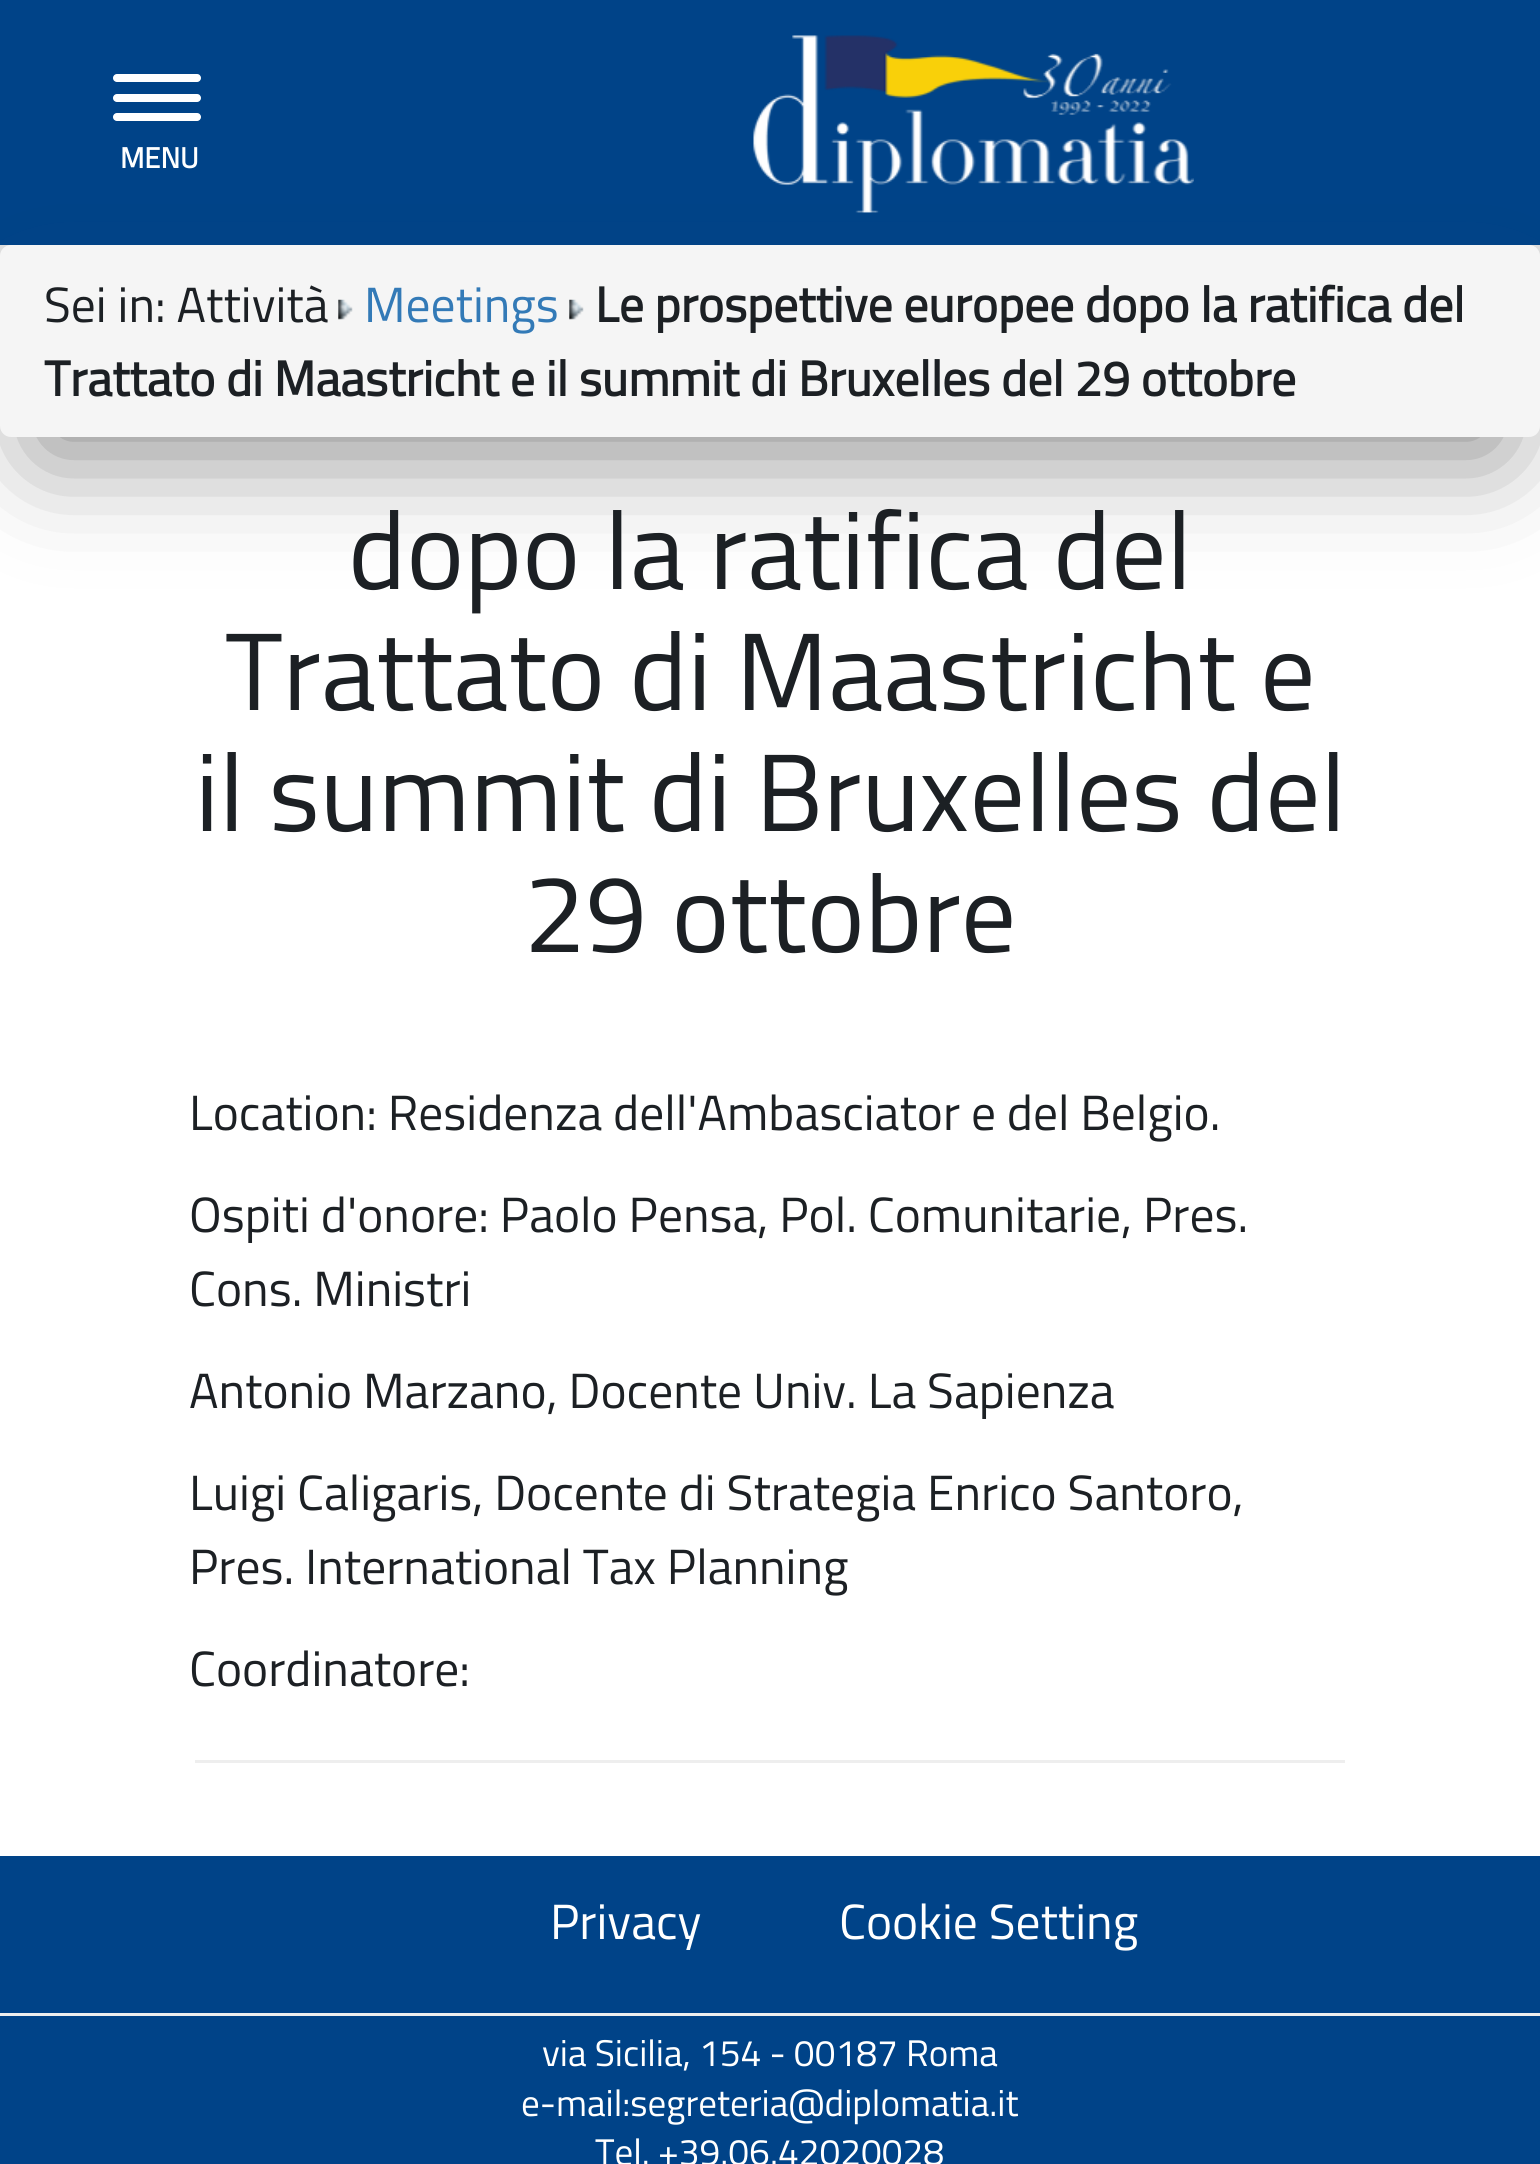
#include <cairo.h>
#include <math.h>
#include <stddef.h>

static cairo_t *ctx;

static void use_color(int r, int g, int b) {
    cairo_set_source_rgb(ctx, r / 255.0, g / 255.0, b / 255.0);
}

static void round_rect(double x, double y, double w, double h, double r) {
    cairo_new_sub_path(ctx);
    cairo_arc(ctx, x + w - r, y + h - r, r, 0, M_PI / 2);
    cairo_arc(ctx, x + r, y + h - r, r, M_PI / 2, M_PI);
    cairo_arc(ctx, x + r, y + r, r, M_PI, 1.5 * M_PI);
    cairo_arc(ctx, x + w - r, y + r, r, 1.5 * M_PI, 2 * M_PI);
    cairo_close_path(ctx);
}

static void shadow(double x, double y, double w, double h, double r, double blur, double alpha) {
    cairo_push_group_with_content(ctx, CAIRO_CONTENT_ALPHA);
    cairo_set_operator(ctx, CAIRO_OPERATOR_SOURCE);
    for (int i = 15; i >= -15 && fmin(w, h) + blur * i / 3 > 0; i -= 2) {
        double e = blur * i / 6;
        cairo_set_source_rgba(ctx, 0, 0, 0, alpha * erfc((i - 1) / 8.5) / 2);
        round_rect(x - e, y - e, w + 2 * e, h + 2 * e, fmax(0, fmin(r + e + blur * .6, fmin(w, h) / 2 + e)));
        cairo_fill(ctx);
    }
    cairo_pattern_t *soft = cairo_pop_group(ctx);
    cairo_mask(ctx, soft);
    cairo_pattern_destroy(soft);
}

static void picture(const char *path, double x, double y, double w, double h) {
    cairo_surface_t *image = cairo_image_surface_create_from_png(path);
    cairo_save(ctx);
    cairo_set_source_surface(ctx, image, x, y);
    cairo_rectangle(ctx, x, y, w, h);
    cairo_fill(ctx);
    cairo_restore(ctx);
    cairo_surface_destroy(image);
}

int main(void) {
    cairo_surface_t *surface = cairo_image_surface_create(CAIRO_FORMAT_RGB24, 1540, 2164);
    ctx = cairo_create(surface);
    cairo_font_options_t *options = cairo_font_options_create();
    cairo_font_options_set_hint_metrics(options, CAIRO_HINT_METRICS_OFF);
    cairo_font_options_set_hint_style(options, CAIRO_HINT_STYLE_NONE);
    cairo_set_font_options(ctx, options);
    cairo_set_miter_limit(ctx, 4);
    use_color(255, 255, 255);
    cairo_paint(ctx);
    use_color(63, 63, 63);
    shadow(41, 96, 1458, 163, 0, 55, 0.65);
    use_color(0, 67, 136);
    cairo_rectangle(ctx, 0, 0, 1540, 245);
    cairo_fill(ctx);
    use_color(255, 255, 255);
    round_rect(113, 74, 88, 8, 4);
    cairo_fill(ctx);
    round_rect(113, 94, 88, 8, 4);
    cairo_fill(ctx);
    round_rect(113, 113, 88, 8, 4);
    cairo_fill(ctx);
    cairo_select_font_face(ctx, "Titillium Web", CAIRO_FONT_SLANT_NORMAL, CAIRO_FONT_WEIGHT_BOLD);
    cairo_set_font_size(ctx, 29);
    cairo_move_to(ctx, 120, 168);
    cairo_show_text(ctx, "MENU");
    use_color(63, 63, 63);
    shadow(41, 341, 1458, 110, 0, 55, 0.65);
    picture("img1.png", 753, 35, 441, 178);
    use_color(245, 245, 245);
    round_rect(0, 245, 1540, 192, 11);
    cairo_fill(ctx);
    cairo_select_font_face(ctx, "Titillium Web", CAIRO_FONT_SLANT_NORMAL, CAIRO_FONT_WEIGHT_NORMAL);
    cairo_set_font_size(ctx, 49.5);
    use_color(28, 32, 36);
    cairo_move_to(ctx, 44, 322);
    cairo_show_text(ctx, "Sei in: Attività");
    picture("img2.png", 338, 299, 15, 21);
    use_color(51, 122, 183);
    cairo_move_to(ctx, 364, 322);
    cairo_show_text(ctx, "Meetings");
    picture("img3.png", 569, 299, 15, 21);
    cairo_select_font_face(ctx, "Titillium Web", CAIRO_FONT_SLANT_NORMAL, CAIRO_FONT_WEIGHT_BOLD);
    use_color(28, 32, 36);
    cairo_move_to(ctx, 595, 322);
    cairo_show_text(ctx, "Le prospettive europee dopo la ratifica del");
    cairo_move_to(ctx, 44, 396);
    cairo_show_text(ctx, "Trattato di Maastricht e il summit di Bruxelles del 29 ottobre");
    cairo_select_font_face(ctx, "Titillium Web", CAIRO_FONT_SLANT_NORMAL, CAIRO_FONT_WEIGHT_NORMAL);
    cairo_set_font_size(ctx, 110);
    cairo_move_to(ctx, 348, 589);
    cairo_show_text(ctx, "dopo la ratifica del");
    cairo_move_to(ctx, 225, 710);
    cairo_show_text(ctx, "Trattato di Maastricht e");
    cairo_move_to(ctx, 195, 831);
    cairo_show_text(ctx, "il summit di Bruxelles del");
    cairo_move_to(ctx, 524, 952);
    cairo_show_text(ctx, "29 ottobre");
    cairo_set_font_size(ctx, 49.5);
    cairo_move_to(ctx, 189, 1130);
    cairo_show_text(ctx, "Location: Residenza dell'Ambasciator e del Belgio.");
    cairo_move_to(ctx, 189, 1232);
    cairo_show_text(ctx, "Ospiti d'onore: Paolo Pensa, Pol. Comunitarie, Pres.");
    cairo_move_to(ctx, 189, 1306);
    cairo_show_text(ctx, "Cons. Ministri");
    cairo_move_to(ctx, 189, 1408);
    cairo_show_text(ctx, "Antonio Marzano, Docente Univ. La Sapienza");
    cairo_move_to(ctx, 189, 1510);
    cairo_show_text(ctx, "Luigi Caligaris, Docente di Strategia Enrico Santoro,");
    cairo_move_to(ctx, 189, 1584);
    cairo_show_text(ctx, "Pres. International Tax Planning");
    cairo_move_to(ctx, 189, 1686);
    cairo_show_text(ctx, "Coordinatore:");
    use_color(238, 238, 238);
    cairo_rectangle(ctx, 195, 1760, 1150, 3);
    cairo_fill(ctx);
    use_color(0, 67, 136);
    cairo_rectangle(ctx, 0, 1856, 1540, 308);
    cairo_fill(ctx);
    use_color(255, 255, 255);
    cairo_move_to(ctx, 550, 1939);
    cairo_show_text(ctx, "Privacy");
    cairo_move_to(ctx, 839, 1939);
    cairo_show_text(ctx, "Cookie Setting");
    use_color(238, 238, 238);
    cairo_rectangle(ctx, 0, 2013, 1540, 3);
    cairo_fill(ctx);
    cairo_set_font_size(ctx, 37.1);
    use_color(255, 255, 255);
    cairo_move_to(ctx, 542, 2066);
    cairo_show_text(ctx, "via Sicilia, 154 - 00187 Roma");
    cairo_move_to(ctx, 521, 2116);
    cairo_show_text(ctx, "e-mail:segreteria@diplomatia.it");
    cairo_move_to(ctx, 595, 2165);
    cairo_show_text(ctx, "Tel. +39.06.42020028");
    cairo_surface_write_to_png(surface, "result.png");
    cairo_font_options_destroy(options);
    cairo_destroy(ctx);
    cairo_surface_destroy(surface);
    return 0;
}
